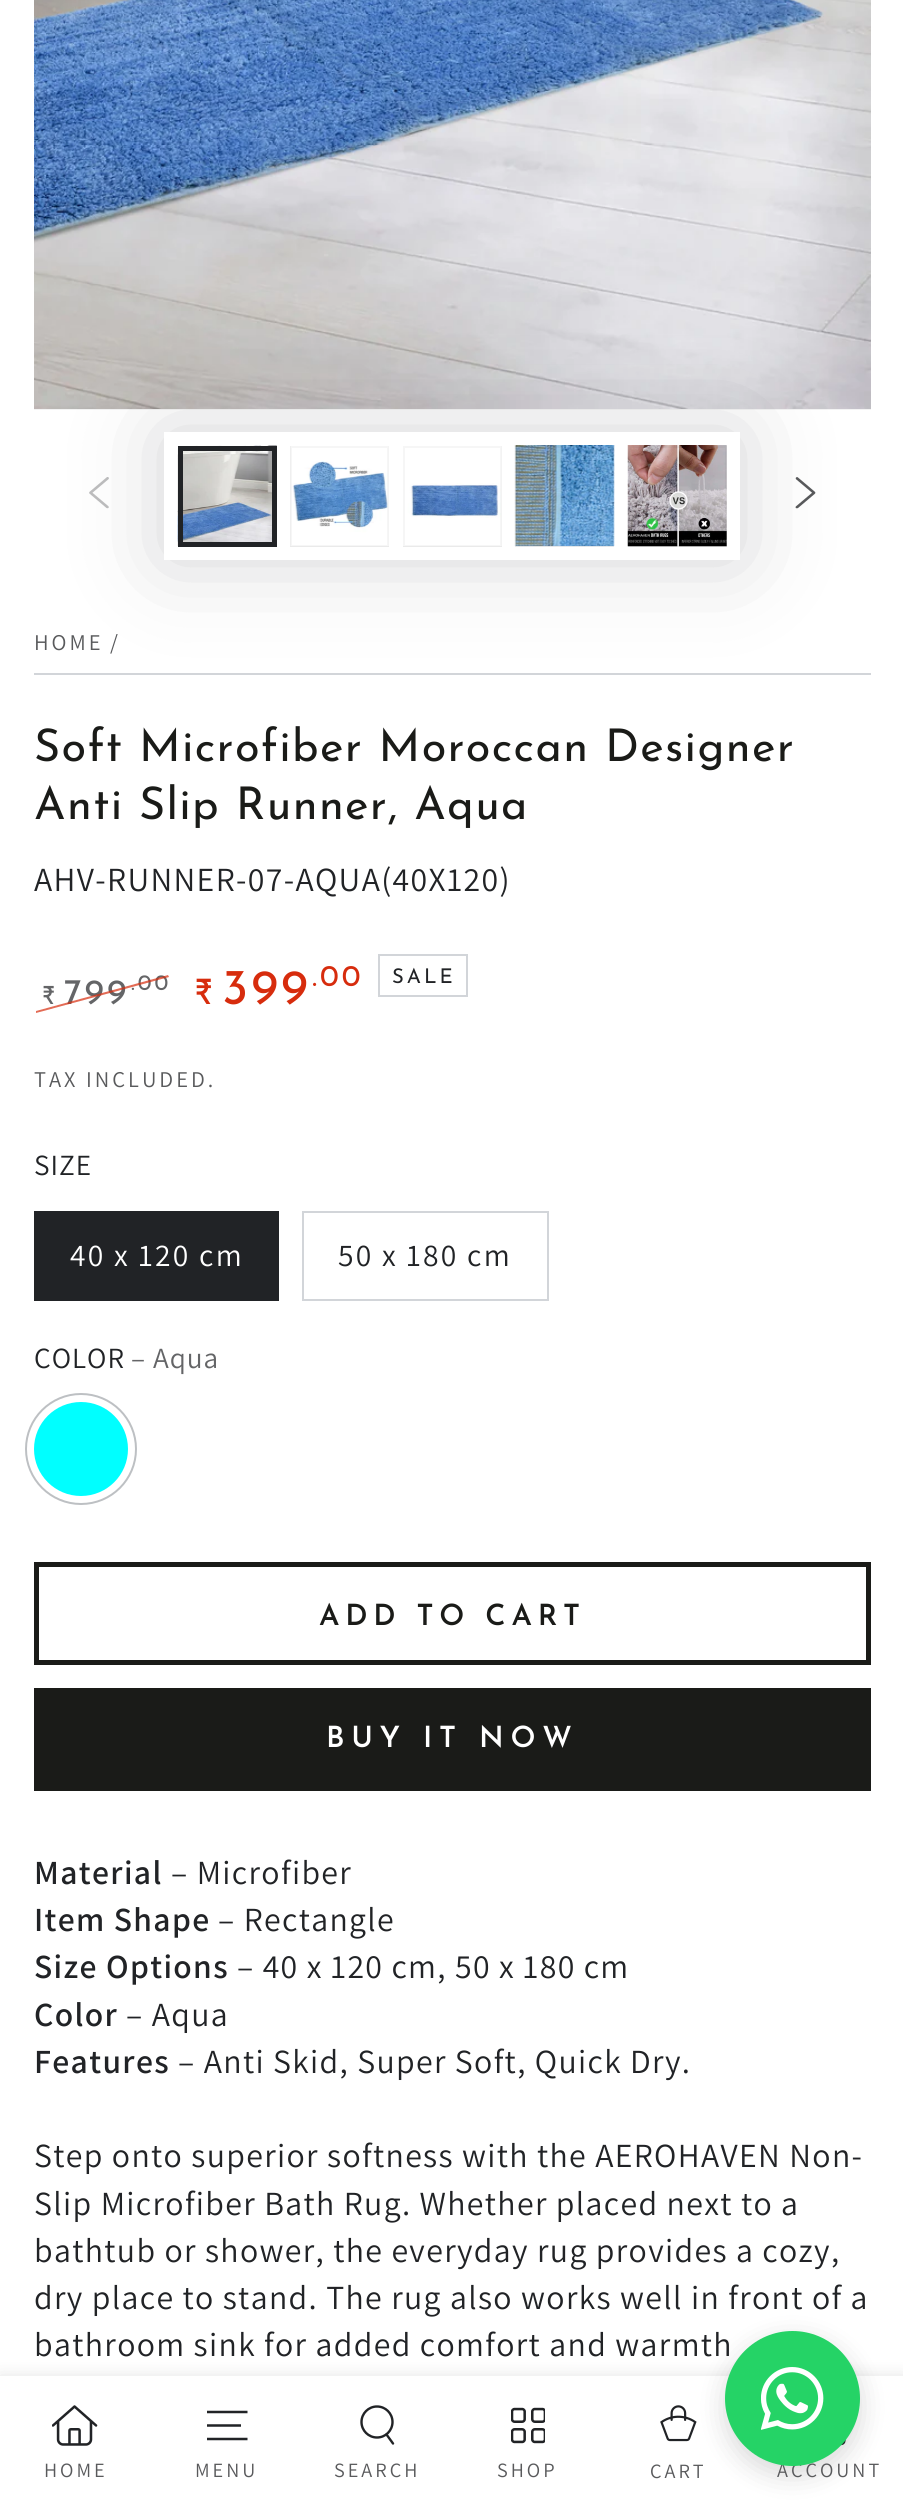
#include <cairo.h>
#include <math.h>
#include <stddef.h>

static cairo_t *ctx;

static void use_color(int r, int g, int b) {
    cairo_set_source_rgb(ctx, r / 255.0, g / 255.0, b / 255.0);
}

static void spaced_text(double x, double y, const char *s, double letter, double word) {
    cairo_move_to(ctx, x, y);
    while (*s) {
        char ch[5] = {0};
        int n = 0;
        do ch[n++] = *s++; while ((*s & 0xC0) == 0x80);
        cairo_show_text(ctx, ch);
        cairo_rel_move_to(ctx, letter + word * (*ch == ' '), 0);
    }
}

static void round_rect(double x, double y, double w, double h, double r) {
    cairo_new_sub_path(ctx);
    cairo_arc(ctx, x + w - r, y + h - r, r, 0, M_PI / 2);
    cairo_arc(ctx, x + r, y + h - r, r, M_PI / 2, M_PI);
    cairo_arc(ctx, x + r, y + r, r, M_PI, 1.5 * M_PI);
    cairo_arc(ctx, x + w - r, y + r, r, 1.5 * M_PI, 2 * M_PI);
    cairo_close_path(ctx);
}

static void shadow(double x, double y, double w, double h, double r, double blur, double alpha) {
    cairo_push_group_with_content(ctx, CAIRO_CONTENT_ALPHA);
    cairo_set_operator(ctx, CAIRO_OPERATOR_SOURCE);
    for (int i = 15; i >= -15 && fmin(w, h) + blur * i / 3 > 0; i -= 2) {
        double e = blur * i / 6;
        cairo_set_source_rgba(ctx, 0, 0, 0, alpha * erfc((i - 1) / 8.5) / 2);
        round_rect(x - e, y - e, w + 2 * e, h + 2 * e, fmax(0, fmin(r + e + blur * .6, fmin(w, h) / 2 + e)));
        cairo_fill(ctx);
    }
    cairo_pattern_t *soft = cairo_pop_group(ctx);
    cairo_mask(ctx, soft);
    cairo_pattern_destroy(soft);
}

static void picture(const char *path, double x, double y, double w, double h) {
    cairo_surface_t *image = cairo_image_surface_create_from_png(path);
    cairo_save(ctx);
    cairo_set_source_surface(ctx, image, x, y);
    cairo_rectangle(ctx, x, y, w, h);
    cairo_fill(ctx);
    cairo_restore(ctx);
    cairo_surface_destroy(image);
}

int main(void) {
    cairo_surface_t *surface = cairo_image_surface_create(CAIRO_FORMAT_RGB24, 903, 2509);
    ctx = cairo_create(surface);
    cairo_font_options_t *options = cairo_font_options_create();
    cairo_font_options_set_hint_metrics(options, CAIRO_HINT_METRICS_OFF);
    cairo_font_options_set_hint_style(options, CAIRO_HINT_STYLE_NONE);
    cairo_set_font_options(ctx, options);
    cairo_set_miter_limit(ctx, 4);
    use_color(255, 255, 255);
    cairo_paint(ctx);
    use_color(243, 243, 243);
    cairo_rectangle(ctx, 34, 409, 837, 1);
    cairo_fill(ctx);
    picture("img1.png", 34, 0, 837, 409);
    use_color(210, 213, 217);
    cairo_rectangle(ctx, 34, 673, 837, 2);
    cairo_fill(ctx);
    use_color(33, 35, 38);
    shadow(164, 432, 576, 128, 0, 45, 0.2);
    use_color(255, 255, 255);
    cairo_rectangle(ctx, 164, 432, 576, 128);
    cairo_fill(ctx);
    picture("img2.png", 177, 445, 100, 101);
    cairo_rectangle(ctx, 180.5, 448.5, 94, 96);
    use_color(33, 35, 38);
    cairo_set_line_width(ctx, 5);
    cairo_stroke(ctx);
    use_color(243, 243, 243);
    cairo_rectangle(ctx, 290, 446, 99, 101);
    cairo_fill(ctx);
    picture("img3.png", 290, 446, 99, 100);
    cairo_rectangle(ctx, 291, 447, 97, 99);
    cairo_set_source_rgba(ctx, 0.129, 0.137, 0.149, 0.04);
    cairo_set_line_width(ctx, 2);
    cairo_stroke(ctx);
    use_color(243, 243, 243);
    cairo_rectangle(ctx, 403, 446, 99, 101);
    cairo_fill(ctx);
    picture("img4.png", 403, 446, 99, 100);
    cairo_rectangle(ctx, 404, 447, 97, 99);
    cairo_set_source_rgba(ctx, 0.129, 0.137, 0.149, 0.04);
    cairo_stroke(ctx);
    use_color(243, 243, 243);
    cairo_rectangle(ctx, 515, 446, 99, 101);
    cairo_fill(ctx);
    picture("img5.png", 514, 445, 101, 102);
    cairo_rectangle(ctx, 516, 447, 97, 99);
    cairo_set_source_rgba(ctx, 0.129, 0.137, 0.149, 0.04);
    cairo_stroke(ctx);
    use_color(243, 243, 243);
    cairo_rectangle(ctx, 628, 446, 99, 101);
    cairo_fill(ctx);
    picture("img6.png", 627, 445, 100, 102);
    cairo_rectangle(ctx, 629, 447, 97, 99);
    cairo_set_source_rgba(ctx, 0.129, 0.137, 0.149, 0.04);
    cairo_stroke(ctx);
    picture("img7.png", 89, 477, 20, 32);
    picture("img8.png", 795, 477, 21, 32);
    cairo_select_font_face(ctx, "Assistant", CAIRO_FONT_SLANT_NORMAL, CAIRO_FONT_WEIGHT_NORMAL);
    cairo_set_font_size(ctx, 22.5);
    use_color(89, 90, 92);
    spaced_text(34, 650, "HOME", 3, 0);
    spaced_text(110, 650, "/", 3, 0);
    cairo_select_font_face(ctx, "Josefin Sans", CAIRO_FONT_SLANT_NORMAL, CAIRO_FONT_WEIGHT_NORMAL);
    cairo_set_font_size(ctx, 45);
    use_color(26, 27, 24);
    spaced_text(34, 761, "Soft Microfiber Moroccan Designer", 1.35, 0);
    spaced_text(34, 819, "Anti Slip Runner, Aqua", 1.35, 0);
    cairo_select_font_face(ctx, "Assistant", CAIRO_FONT_SLANT_NORMAL, CAIRO_FONT_WEIGHT_NORMAL);
    cairo_set_font_size(ctx, 33.75);
    use_color(33, 35, 38);
    spaced_text(34, 891, "AHV-RUNNER-07-AQUA(40X120)", 1.35, 0);
    cairo_select_font_face(ctx, "Josefin Sans", CAIRO_FONT_SLANT_NORMAL, CAIRO_FONT_WEIGHT_NORMAL);
    cairo_set_font_size(ctx, 25);
    use_color(100, 101, 103);
    spaced_text(41, 1004, "₹", 3, 0);
    cairo_set_font_size(ctx, 36);
    spaced_text(64, 1004, "799", 3, 0);
    cairo_set_font_size(ctx, 22);
    spaced_text(131, 990, ".00", 3, 0);
    cairo_set_source_rgba(ctx, 0.843, 0.173, 0.051, 0.7);
    cairo_new_path(ctx);
    cairo_move_to(ctx, 36, 1011);
    cairo_line_to(ctx, 168, 975);
    cairo_line_to(ctx, 169, 977);
    cairo_line_to(ctx, 36, 1013);
    cairo_close_path(ctx);
    cairo_fill(ctx);
    cairo_set_font_size(ctx, 35);
    use_color(215, 44, 13);
    spaced_text(193, 1004, "₹", 3, 0);
    cairo_set_font_size(ctx, 50);
    spaced_text(222, 1004, "399", 3, 0);
    cairo_set_font_size(ctx, 30);
    spaced_text(312, 986, ".00", 3, 0);
    cairo_rectangle(ctx, 379, 955, 88, 41);
    use_color(210, 213, 217);
    cairo_stroke(ctx);
    cairo_set_font_size(ctx, 20.25);
    use_color(33, 35, 38);
    spaced_text(392, 983, "SALE", 3, 0);
    cairo_select_font_face(ctx, "Assistant", CAIRO_FONT_SLANT_NORMAL, CAIRO_FONT_WEIGHT_NORMAL);
    cairo_set_font_size(ctx, 22.5);
    use_color(89, 90, 92);
    spaced_text(34, 1087, "TAX INCLUDED.", 3, 0);
    cairo_set_font_size(ctx, 29.25);
    use_color(33, 35, 38);
    spaced_text(34, 1175, "SIZE", 1, 0);
    cairo_rectangle(ctx, 34, 1211, 245, 90);
    cairo_fill(ctx);
    cairo_set_font_size(ctx, 31.5);
    use_color(255, 255, 255);
    spaced_text(70, 1266, "40 x 120 cm", 2.25, 0);
    cairo_rectangle(ctx, 303, 1212, 245, 88);
    use_color(210, 213, 217);
    cairo_stroke(ctx);
    use_color(33, 35, 38);
    spaced_text(338, 1266, "50 x 180 cm", 2.25, 0);
    cairo_set_font_size(ctx, 29.25);
    spaced_text(34, 1368, "COLOR", 1, 0);
    use_color(100, 101, 103);
    spaced_text(131, 1368, "– Aqua", 1, 0);
    use_color(0, 255, 255);
    cairo_new_path(ctx);
    cairo_arc(ctx, 81, 1449, 47, 0, 2 * M_PI);
    cairo_fill(ctx);
    cairo_arc(ctx, 81, 1449, 55, 0, 2 * M_PI);
    use_color(189, 192, 195);
    cairo_stroke(ctx);
    cairo_rectangle(ctx, 36.5, 1564.5, 832, 98);
    use_color(26, 27, 24);
    cairo_set_line_width(ctx, 5);
    cairo_stroke(ctx);
    cairo_select_font_face(ctx, "Josefin Sans SemiBold", CAIRO_FONT_SLANT_NORMAL, CAIRO_FONT_WEIGHT_NORMAL);
    spaced_text(319, 1625, "ADD TO CART", 5.8, 0);
    cairo_rectangle(ctx, 34, 1688, 837, 103);
    cairo_fill(ctx);
    use_color(255, 255, 255);
    spaced_text(326, 1747, "BUY IT NOW", 6.75, 0);
    cairo_select_font_face(ctx, "Assistant SemiBold", CAIRO_FONT_SLANT_NORMAL, CAIRO_FONT_WEIGHT_NORMAL);
    cairo_set_font_size(ctx, 33.75);
    use_color(33, 35, 38);
    spaced_text(34, 1884, "Material", 1.35, 0);
    cairo_select_font_face(ctx, "Assistant", CAIRO_FONT_SLANT_NORMAL, CAIRO_FONT_WEIGHT_NORMAL);
    spaced_text(171, 1884, "– Microfiber", 1.35, 0);
    cairo_select_font_face(ctx, "Assistant SemiBold", CAIRO_FONT_SLANT_NORMAL, CAIRO_FONT_WEIGHT_NORMAL);
    spaced_text(34, 1931, "Item Shape", 1.35, 0);
    cairo_select_font_face(ctx, "Assistant", CAIRO_FONT_SLANT_NORMAL, CAIRO_FONT_WEIGHT_NORMAL);
    spaced_text(218, 1931, "– Rectangle", 1.35, 0);
    cairo_select_font_face(ctx, "Assistant SemiBold", CAIRO_FONT_SLANT_NORMAL, CAIRO_FONT_WEIGHT_NORMAL);
    spaced_text(34, 1978, "Size Options", 1.35, 0);
    cairo_select_font_face(ctx, "Assistant", CAIRO_FONT_SLANT_NORMAL, CAIRO_FONT_WEIGHT_NORMAL);
    spaced_text(237, 1978, "– 40 x 120 cm, 50 x 180 cm", 1.35, 0);
    cairo_select_font_face(ctx, "Assistant SemiBold", CAIRO_FONT_SLANT_NORMAL, CAIRO_FONT_WEIGHT_NORMAL);
    spaced_text(34, 2026, "Color", 1.35, 0);
    cairo_select_font_face(ctx, "Assistant", CAIRO_FONT_SLANT_NORMAL, CAIRO_FONT_WEIGHT_NORMAL);
    spaced_text(126, 2026, "– Aqua", 1.35, 0);
    cairo_select_font_face(ctx, "Assistant SemiBold", CAIRO_FONT_SLANT_NORMAL, CAIRO_FONT_WEIGHT_NORMAL);
    spaced_text(34, 2073, "Features", 1.35, 0);
    cairo_select_font_face(ctx, "Assistant", CAIRO_FONT_SLANT_NORMAL, CAIRO_FONT_WEIGHT_NORMAL);
    spaced_text(178, 2073, "– Anti Skid, Super Soft, Quick Dry.", 1.35, 0);
    spaced_text(34, 2167, "Step onto superior softness with the AEROHAVEN Non-", 1.35, 0);
    spaced_text(34, 2215, "Slip Microfiber Bath Rug. Whether placed next to a", 1.35, 0);
    spaced_text(34, 2262, "bathtub or shower, the everyday rug provides a cozy,", 1.35, 0);
    spaced_text(34, 2309, "dry place to stand. The rug also works well in front of a", 1.35, 0);
    spaced_text(34, 2356, "bathroom sink for added comfort and warmth", 1.35, 0);
    use_color(33, 35, 38);
    shadow(0, 2378, 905, 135, 0, 9, 0.15);
    use_color(255, 255, 255);
    cairo_rectangle(ctx, 0, 2376, 903, 133);
    cairo_fill(ctx);
    picture("img12.png", 660, 2405, 37, 37);
    cairo_new_path(ctx);
    cairo_move_to(ctx, 831, 2428);
    cairo_curve_to(ctx, 823.5, 2428, 817.5, 2433.5, 817.5, 2440.5);
    cairo_curve_to(ctx, 817.5, 2442.5, 819, 2444, 820.5, 2444);
    cairo_line_to(ctx, 841.5, 2444);
    cairo_curve_to(ctx, 843, 2444, 844.5, 2442.5, 844.5, 2440.5);
    cairo_curve_to(ctx, 844.5, 2433.5, 838.5, 2428, 831, 2428);
    cairo_close_path(ctx);
    use_color(33, 35, 38);
    cairo_set_line_width(ctx, 2.2);
    cairo_stroke(ctx);
    use_color(0, 0, 0);
    shadow(725, 2340, 135, 135, 67.5, 13.5, 0.15);
    cairo_set_font_size(ctx, 20.25);
    use_color(89, 90, 92);
    spaced_text(777, 2477, "ACCOUNT", 3, 0);
    use_color(37, 211, 102);
    cairo_new_path(ctx);
    cairo_arc(ctx, 792.5, 2398.5, 67.5, 0, 2 * M_PI);
    cairo_fill(ctx);
    picture("img9.png", 761, 2367, 63, 63);
    picture("img10.png", 52, 2405, 46, 41);
    use_color(89, 90, 92);
    spaced_text(44, 2477, "HOME", 3, 0);
    cairo_new_path(ctx);
    cairo_move_to(ctx, 207, 2439);
    cairo_line_to(ctx, 247.5, 2439);
    cairo_move_to(ctx, 207, 2425.5);
    cairo_line_to(ctx, 241, 2425.5);
    cairo_move_to(ctx, 207, 2412);
    cairo_line_to(ctx, 247.5, 2412);
    use_color(33, 35, 38);
    cairo_set_line_width(ctx, 2.5);
    cairo_stroke(ctx);
    use_color(89, 90, 92);
    spaced_text(195, 2477, "MENU", 3, 0);
    cairo_new_path(ctx);
    cairo_arc(ctx, 377, 2422, 15.5, 0, 2 * M_PI);
    use_color(33, 35, 38);
    cairo_set_line_width(ctx, 2.4);
    cairo_stroke(ctx);
    cairo_new_path(ctx);
    cairo_move_to(ctx, 386.5, 2434.5);
    cairo_line_to(ctx, 393, 2443.5);
    cairo_set_line_cap(ctx, CAIRO_LINE_CAP_ROUND);
    cairo_stroke(ctx);
    use_color(89, 90, 92);
    spaced_text(334, 2477, "SEARCH", 3, 0);
    picture("img11.png", 511, 2407, 34, 37);
    spaced_text(497, 2477, "SHOP", 3, 0);
    spaced_text(650, 2478, "CART", 3, 0);
    cairo_surface_write_to_png(surface, "result.png");
    cairo_font_options_destroy(options);
    cairo_destroy(ctx);
    cairo_surface_destroy(surface);
    return 0;
}
